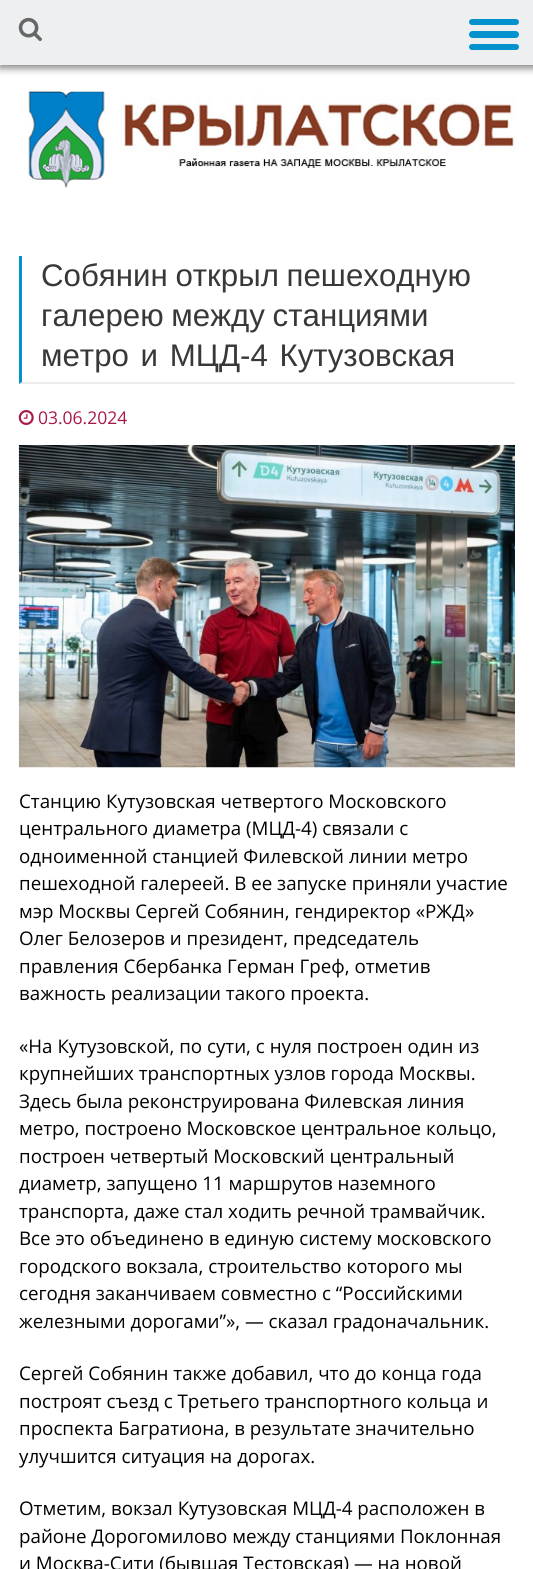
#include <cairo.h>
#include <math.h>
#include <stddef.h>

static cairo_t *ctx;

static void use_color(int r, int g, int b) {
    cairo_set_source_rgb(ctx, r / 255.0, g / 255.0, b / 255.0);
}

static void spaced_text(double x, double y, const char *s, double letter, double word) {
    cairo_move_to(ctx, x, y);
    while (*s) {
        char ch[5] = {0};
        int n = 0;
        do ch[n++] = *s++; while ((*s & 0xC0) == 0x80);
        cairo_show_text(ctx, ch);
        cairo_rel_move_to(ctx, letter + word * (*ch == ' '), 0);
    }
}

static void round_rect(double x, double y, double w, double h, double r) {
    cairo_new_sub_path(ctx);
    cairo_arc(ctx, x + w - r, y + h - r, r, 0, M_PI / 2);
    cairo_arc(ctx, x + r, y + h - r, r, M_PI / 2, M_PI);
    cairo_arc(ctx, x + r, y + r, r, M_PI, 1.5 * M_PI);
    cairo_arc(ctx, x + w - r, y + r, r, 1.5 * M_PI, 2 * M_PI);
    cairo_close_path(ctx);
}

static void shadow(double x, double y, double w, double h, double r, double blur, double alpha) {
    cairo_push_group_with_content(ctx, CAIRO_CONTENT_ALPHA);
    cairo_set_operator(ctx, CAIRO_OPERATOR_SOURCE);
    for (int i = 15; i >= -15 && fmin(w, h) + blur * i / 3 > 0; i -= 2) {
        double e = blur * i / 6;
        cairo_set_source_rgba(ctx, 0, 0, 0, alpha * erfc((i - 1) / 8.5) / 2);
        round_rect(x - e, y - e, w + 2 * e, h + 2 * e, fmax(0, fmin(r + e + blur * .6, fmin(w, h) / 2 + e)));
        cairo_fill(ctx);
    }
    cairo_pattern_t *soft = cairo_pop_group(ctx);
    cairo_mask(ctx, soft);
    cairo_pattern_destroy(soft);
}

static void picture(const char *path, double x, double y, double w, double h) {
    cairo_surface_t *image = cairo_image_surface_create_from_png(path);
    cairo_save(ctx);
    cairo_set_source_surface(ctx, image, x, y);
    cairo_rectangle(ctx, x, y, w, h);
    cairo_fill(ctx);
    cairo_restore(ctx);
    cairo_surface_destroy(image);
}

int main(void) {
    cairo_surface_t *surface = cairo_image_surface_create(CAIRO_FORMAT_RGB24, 533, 1569);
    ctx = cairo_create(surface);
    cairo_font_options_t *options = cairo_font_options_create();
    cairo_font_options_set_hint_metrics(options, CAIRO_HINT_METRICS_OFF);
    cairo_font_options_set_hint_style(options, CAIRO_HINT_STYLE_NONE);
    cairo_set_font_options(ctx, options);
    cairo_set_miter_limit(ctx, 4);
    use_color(255, 255, 255);
    cairo_paint(ctx);
    use_color(0, 0, 0);
    shadow(0, 0, 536, 68, 0, 4, 0.5);
    use_color(238, 239, 240);
    cairo_rectangle(ctx, 0, 0, 533, 65);
    cairo_fill(ctx);
    use_color(3, 146, 206);
    round_rect(469, 19, 50, 6, 3);
    cairo_fill(ctx);
    round_rect(469, 31, 50, 7, 3.5);
    cairo_fill(ctx);
    round_rect(469, 44, 50, 6, 3);
    cairo_fill(ctx);
    picture("img1.png", 18, 17, 24, 24);
    picture("img2.png", 28, 91, 487, 97);
    use_color(236, 236, 236);
    cairo_new_path(ctx);
    cairo_move_to(ctx, 515, 384);
    cairo_line_to(ctx, 19, 384);
    cairo_line_to(ctx, 22, 382);
    cairo_line_to(ctx, 515, 382);
    cairo_close_path(ctx);
    cairo_fill(ctx);
    use_color(3, 146, 206);
    cairo_new_path(ctx);
    cairo_move_to(ctx, 19, 384);
    cairo_line_to(ctx, 19, 256);
    cairo_line_to(ctx, 22, 256);
    cairo_line_to(ctx, 22, 382);
    cairo_close_path(ctx);
    cairo_fill(ctx);
    cairo_select_font_face(ctx, "Liberation Sans", CAIRO_FONT_SLANT_NORMAL, CAIRO_FONT_WEIGHT_NORMAL);
    cairo_set_font_size(ctx, 31.25);
    use_color(56, 56, 56);
    spaced_text(41, 286, "Собянин открыл пешеходную", 0, -1);
    spaced_text(41, 326, "галерею между станциями", 0, -1);
    spaced_text(41, 366, "метро и МЦД-4 Кутузовская", 0, 3);
    picture("img3.png", 18, 410, 16, 15);
    cairo_select_font_face(ctx, "Open Sans", CAIRO_FONT_SLANT_NORMAL, CAIRO_FONT_WEIGHT_NORMAL);
    cairo_set_font_size(ctx, 17.5);
    use_color(167, 25, 75);
    cairo_move_to(ctx, 38, 424);
    cairo_show_text(ctx, "03.06.2024");
    picture("img4.png", 18, 445, 497, 323);
    cairo_set_font_size(ctx, 18.75);
    use_color(0, 0, 0);
    cairo_move_to(ctx, 19, 808);
    cairo_show_text(ctx, "Станцию Кутузовская четвертого Московского");
    cairo_move_to(ctx, 19, 835);
    cairo_show_text(ctx, "центрального диаметра (МЦД-4) связали с");
    cairo_move_to(ctx, 19, 863);
    cairo_show_text(ctx, "одноименной станцией Филевской линии метро");
    cairo_move_to(ctx, 19, 890);
    cairo_show_text(ctx, "пешеходной галереей. В ее запуске приняли участие");
    cairo_move_to(ctx, 19, 918);
    cairo_show_text(ctx, "мэр Москвы Сергей Собянин, гендиректор «РЖД»");
    cairo_move_to(ctx, 19, 945);
    cairo_show_text(ctx, "Олег Белозеров и президент, председатель");
    cairo_move_to(ctx, 19, 973);
    cairo_show_text(ctx, "правления Сбербанка Герман Греф, отметив");
    cairo_move_to(ctx, 19, 1000);
    cairo_show_text(ctx, "важность реализации такого проекта.");
    cairo_move_to(ctx, 19, 1053);
    cairo_show_text(ctx, "«На Кутузовской, по сути, с нуля построен один из");
    cairo_move_to(ctx, 19, 1080);
    cairo_show_text(ctx, "крупнейших транспортных узлов города Москвы.");
    cairo_move_to(ctx, 19, 1108);
    cairo_show_text(ctx, "Здесь была реконструирована Филевская линия");
    cairo_move_to(ctx, 19, 1135);
    cairo_show_text(ctx, "метро, построено Московское центральное кольцо,");
    cairo_move_to(ctx, 19, 1163);
    cairo_show_text(ctx, "построен четвертый Московский центральный");
    cairo_move_to(ctx, 19, 1190);
    cairo_show_text(ctx, "диаметр, запущено 11 маршрутов наземного");
    cairo_move_to(ctx, 19, 1218);
    cairo_show_text(ctx, "транспорта, даже стал ходить речной трамвайчик.");
    cairo_move_to(ctx, 19, 1245);
    cairo_show_text(ctx, "Все это объединено в единую систему московского");
    cairo_move_to(ctx, 19, 1273);
    cairo_show_text(ctx, "городского вокзала, строительство которого мы");
    cairo_move_to(ctx, 19, 1300);
    cairo_show_text(ctx, "сегодня заканчиваем совместно с “Российскими");
    cairo_move_to(ctx, 19, 1328);
    cairo_show_text(ctx, "железными дорогами”», — сказал градоначальник.");
    cairo_move_to(ctx, 19, 1380);
    cairo_show_text(ctx, "Сергей Собянин также добавил, что до конца года");
    cairo_move_to(ctx, 19, 1408);
    cairo_show_text(ctx, "построят съезд с Третьего транспортного кольца и");
    cairo_move_to(ctx, 19, 1435);
    cairo_show_text(ctx, "проспекта Багратиона, в результате значительно");
    cairo_move_to(ctx, 19, 1463);
    cairo_show_text(ctx, "улучшится ситуация на дорогах.");
    cairo_move_to(ctx, 19, 1515);
    cairo_show_text(ctx, "Отметим, вокзал Кутузовская МЦД-4 расположен в");
    cairo_move_to(ctx, 19, 1543);
    cairo_show_text(ctx, "районе Дорогомилово между станциями Поклонная");
    cairo_move_to(ctx, 19, 1570);
    cairo_show_text(ctx, "и Москва-Сити (бывшая Тестовская) — на новой");
    cairo_surface_write_to_png(surface, "result.png");
    cairo_font_options_destroy(options);
    cairo_destroy(ctx);
    cairo_surface_destroy(surface);
    return 0;
}
